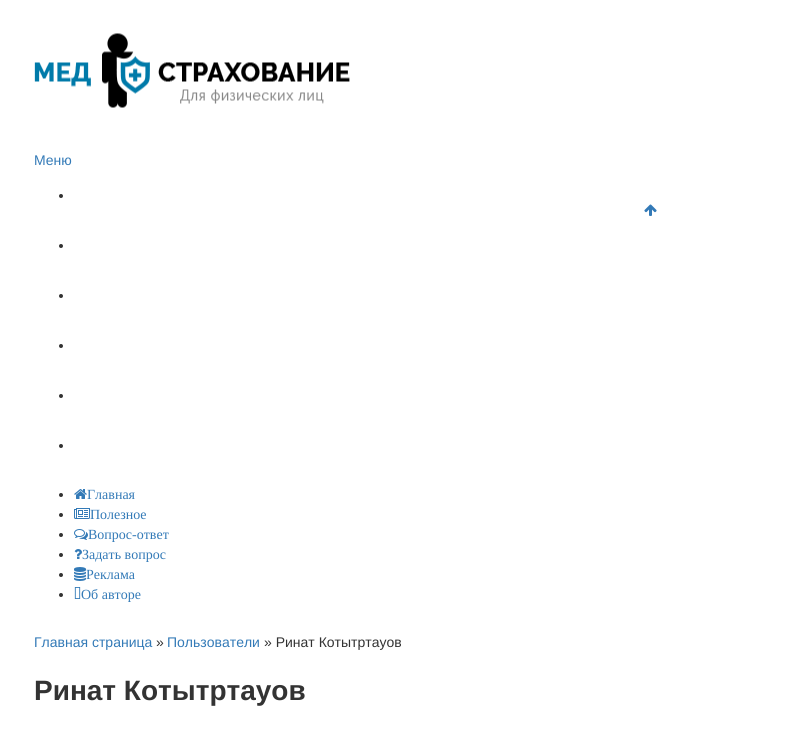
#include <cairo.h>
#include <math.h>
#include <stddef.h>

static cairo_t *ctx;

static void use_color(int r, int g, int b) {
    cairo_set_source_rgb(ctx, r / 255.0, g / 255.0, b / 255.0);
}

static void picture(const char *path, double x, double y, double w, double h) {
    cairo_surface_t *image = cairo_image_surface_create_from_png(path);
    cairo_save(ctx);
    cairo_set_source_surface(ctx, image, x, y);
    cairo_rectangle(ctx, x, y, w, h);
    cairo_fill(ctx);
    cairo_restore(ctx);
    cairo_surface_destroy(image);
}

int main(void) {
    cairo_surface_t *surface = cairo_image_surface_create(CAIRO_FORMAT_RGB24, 787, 752);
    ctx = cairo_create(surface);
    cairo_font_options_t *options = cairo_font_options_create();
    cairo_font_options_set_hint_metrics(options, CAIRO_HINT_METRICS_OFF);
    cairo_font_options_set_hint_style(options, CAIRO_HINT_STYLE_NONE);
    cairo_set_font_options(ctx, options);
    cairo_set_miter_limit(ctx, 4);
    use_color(255, 255, 255);
    cairo_paint(ctx);
    picture("img1.png", 34, 33, 316, 75);
    cairo_select_font_face(ctx, "Liberation Sans", CAIRO_FONT_SLANT_NORMAL, CAIRO_FONT_WEIGHT_NORMAL);
    cairo_set_font_size(ctx, 14);
    use_color(51, 122, 183);
    cairo_move_to(ctx, 34, 165);
    cairo_show_text(ctx, "Меню");
    use_color(51, 51, 51);
    cairo_new_path(ctx);
    cairo_arc(ctx, 61, 196, 2, 0, 2 * M_PI);
    cairo_fill(ctx);
    cairo_arc(ctx, 61, 246, 2, 0, 2 * M_PI);
    cairo_fill(ctx);
    cairo_arc(ctx, 61, 296, 2, 0, 2 * M_PI);
    cairo_fill(ctx);
    cairo_arc(ctx, 61, 346, 2, 0, 2 * M_PI);
    cairo_fill(ctx);
    cairo_arc(ctx, 61, 396, 2, 0, 2 * M_PI);
    cairo_fill(ctx);
    cairo_arc(ctx, 61, 446, 2, 0, 2 * M_PI);
    cairo_fill(ctx);
    cairo_arc(ctx, 61, 495, 2, 0, 2 * M_PI);
    cairo_fill(ctx);
    picture("img2.png", 74, 489, 13, 10);
    cairo_select_font_face(ctx, "Liberation Serif", CAIRO_FONT_SLANT_NORMAL, CAIRO_FONT_WEIGHT_NORMAL);
    use_color(51, 122, 183);
    cairo_move_to(ctx, 87, 499);
    cairo_show_text(ctx, "Главная");
    use_color(51, 51, 51);
    cairo_new_path(ctx);
    cairo_arc(ctx, 61, 515, 2, 0, 2 * M_PI);
    cairo_fill(ctx);
    picture("img3.png", 74, 508, 16, 11);
    use_color(51, 122, 183);
    cairo_move_to(ctx, 90, 519);
    cairo_show_text(ctx, "Полезное");
    use_color(51, 51, 51);
    cairo_new_path(ctx);
    cairo_arc(ctx, 61, 535, 2, 0, 2 * M_PI);
    cairo_fill(ctx);
    picture("img4.png", 74, 529, 14, 11);
    use_color(51, 122, 183);
    cairo_move_to(ctx, 88, 539);
    cairo_show_text(ctx, "Вопрос-ответ");
    use_color(51, 51, 51);
    cairo_new_path(ctx);
    cairo_arc(ctx, 61, 555, 2, 0, 2 * M_PI);
    cairo_fill(ctx);
    picture("img5.png", 74, 549, 8, 10);
    use_color(51, 122, 183);
    cairo_move_to(ctx, 82, 559);
    cairo_show_text(ctx, "Задать вопрос");
    use_color(51, 51, 51);
    cairo_new_path(ctx);
    cairo_arc(ctx, 61, 575, 2, 0, 2 * M_PI);
    cairo_fill(ctx);
    picture("img6.png", 74, 567, 12, 14);
    use_color(51, 122, 183);
    cairo_move_to(ctx, 86, 579);
    cairo_show_text(ctx, "Реклама");
    use_color(51, 51, 51);
    cairo_new_path(ctx);
    cairo_arc(ctx, 61, 595, 2, 0, 2 * M_PI);
    cairo_fill(ctx);
    picture("img7.png", 74, 587, 7, 12);
    use_color(51, 122, 183);
    cairo_move_to(ctx, 81, 599);
    cairo_show_text(ctx, "Об авторе");
    picture("img8.png", 644, 204, 13, 12);
    cairo_select_font_face(ctx, "Liberation Sans", CAIRO_FONT_SLANT_NORMAL, CAIRO_FONT_WEIGHT_NORMAL);
    cairo_move_to(ctx, 34, 647);
    cairo_show_text(ctx, "Главная страница");
    use_color(51, 51, 51);
    cairo_move_to(ctx, 156, 647);
    cairo_show_text(ctx, "»");
    use_color(51, 122, 183);
    cairo_move_to(ctx, 167, 647);
    cairo_show_text(ctx, "Пользователи");
    use_color(51, 51, 51);
    cairo_move_to(ctx, 264, 647);
    cairo_show_text(ctx, "» Ринат Котытртауов");
    cairo_select_font_face(ctx, "Liberation Sans", CAIRO_FONT_SLANT_NORMAL, CAIRO_FONT_WEIGHT_BOLD);
    cairo_set_font_size(ctx, 28);
    cairo_move_to(ctx, 34, 700);
    cairo_show_text(ctx, "Ринат Котытртауов");
    cairo_surface_write_to_png(surface, "result.png");
    cairo_font_options_destroy(options);
    cairo_destroy(ctx);
    cairo_surface_destroy(surface);
    return 0;
}
